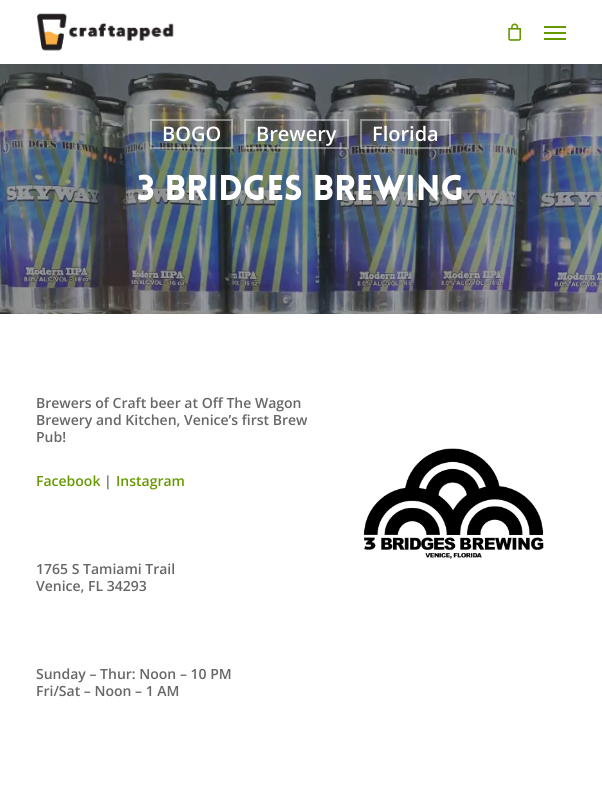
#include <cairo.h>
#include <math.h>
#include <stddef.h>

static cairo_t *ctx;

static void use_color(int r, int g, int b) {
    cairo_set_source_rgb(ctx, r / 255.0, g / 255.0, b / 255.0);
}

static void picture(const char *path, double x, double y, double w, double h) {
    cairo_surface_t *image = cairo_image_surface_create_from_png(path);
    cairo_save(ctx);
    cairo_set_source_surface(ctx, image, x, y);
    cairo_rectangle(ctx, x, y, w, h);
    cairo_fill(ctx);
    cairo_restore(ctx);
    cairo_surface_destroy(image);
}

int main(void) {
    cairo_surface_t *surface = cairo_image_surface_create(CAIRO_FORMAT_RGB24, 602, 802);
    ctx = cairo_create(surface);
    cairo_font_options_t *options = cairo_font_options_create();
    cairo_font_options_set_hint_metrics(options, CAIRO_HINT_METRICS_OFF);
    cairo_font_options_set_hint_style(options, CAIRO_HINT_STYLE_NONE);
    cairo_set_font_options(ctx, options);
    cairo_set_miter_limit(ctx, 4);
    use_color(255, 255, 255);
    cairo_paint(ctx);
    picture("img1.png", 36, 13, 138, 38);
    picture("img2.png", 508, 23, 14, 18);
    use_color(102, 153, 0);
    cairo_rectangle(ctx, 544, 26, 22, 2);
    cairo_fill(ctx);
    cairo_rectangle(ctx, 544, 38, 22, 2);
    cairo_fill(ctx);
    cairo_rectangle(ctx, 544, 32, 22, 2);
    cairo_fill(ctx);
    picture("img3.png", 0, 64, 602, 250);
    cairo_rectangle(ctx, 151, 120, 81, 28);
    cairo_set_source_rgba(ctx, 1, 1, 1, 0.4);
    cairo_stroke(ctx);
    cairo_select_font_face(ctx, "Open Sans SemiBold", CAIRO_FONT_SLANT_NORMAL, CAIRO_FONT_WEIGHT_NORMAL);
    cairo_set_font_size(ctx, 20);
    use_color(255, 255, 255);
    cairo_move_to(ctx, 162, 141);
    cairo_show_text(ctx, "BOGO");
    cairo_rectangle(ctx, 245, 120, 103, 28);
    cairo_set_source_rgba(ctx, 1, 1, 1, 0.4);
    cairo_stroke(ctx);
    use_color(255, 255, 255);
    cairo_move_to(ctx, 256, 141);
    cairo_show_text(ctx, "Brewery");
    cairo_rectangle(ctx, 361, 120, 89, 28);
    cairo_set_source_rgba(ctx, 1, 1, 1, 0.4);
    cairo_stroke(ctx);
    use_color(255, 255, 255);
    cairo_move_to(ctx, 372, 141);
    cairo_show_text(ctx, "Florida");
    cairo_select_font_face(ctx, "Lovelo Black", CAIRO_FONT_SLANT_NORMAL, CAIRO_FONT_WEIGHT_NORMAL);
    cairo_set_font_size(ctx, 35);
    cairo_move_to(ctx, 137, 200);
    cairo_show_text(ctx, "3 Bridges Brewing");
    cairo_select_font_face(ctx, "Open Sans SemiBold", CAIRO_FONT_SLANT_NORMAL, CAIRO_FONT_WEIGHT_NORMAL);
    cairo_set_font_size(ctx, 14);
    use_color(103, 103, 103);
    cairo_move_to(ctx, 36, 408);
    cairo_show_text(ctx, "Brewers of Craft beer at Off The Wagon");
    cairo_move_to(ctx, 36, 425);
    cairo_show_text(ctx, "Brewery and Kitchen, Venice’s first Brew");
    cairo_move_to(ctx, 36, 442);
    cairo_show_text(ctx, "Pub!");
    picture("img4.png", 363, 448, 181, 111);
    use_color(102, 153, 0);
    cairo_move_to(ctx, 36, 486);
    cairo_show_text(ctx, "Facebook");
    use_color(103, 103, 103);
    cairo_move_to(ctx, 104, 486);
    cairo_show_text(ctx, "|");
    use_color(102, 153, 0);
    cairo_move_to(ctx, 116, 486);
    cairo_show_text(ctx, "Instagram");
    use_color(103, 103, 103);
    cairo_move_to(ctx, 36, 574);
    cairo_show_text(ctx, "1765 S Tamiami Trail");
    cairo_move_to(ctx, 36, 591);
    cairo_show_text(ctx, "Venice, FL 34293");
    cairo_move_to(ctx, 36, 679);
    cairo_show_text(ctx, "Sunday – Thur: Noon – 10 PM");
    cairo_move_to(ctx, 36, 696);
    cairo_show_text(ctx, "Fri/Sat – Noon – 1 AM");
    cairo_surface_write_to_png(surface, "result.png");
    cairo_font_options_destroy(options);
    cairo_destroy(ctx);
    cairo_surface_destroy(surface);
    return 0;
}
